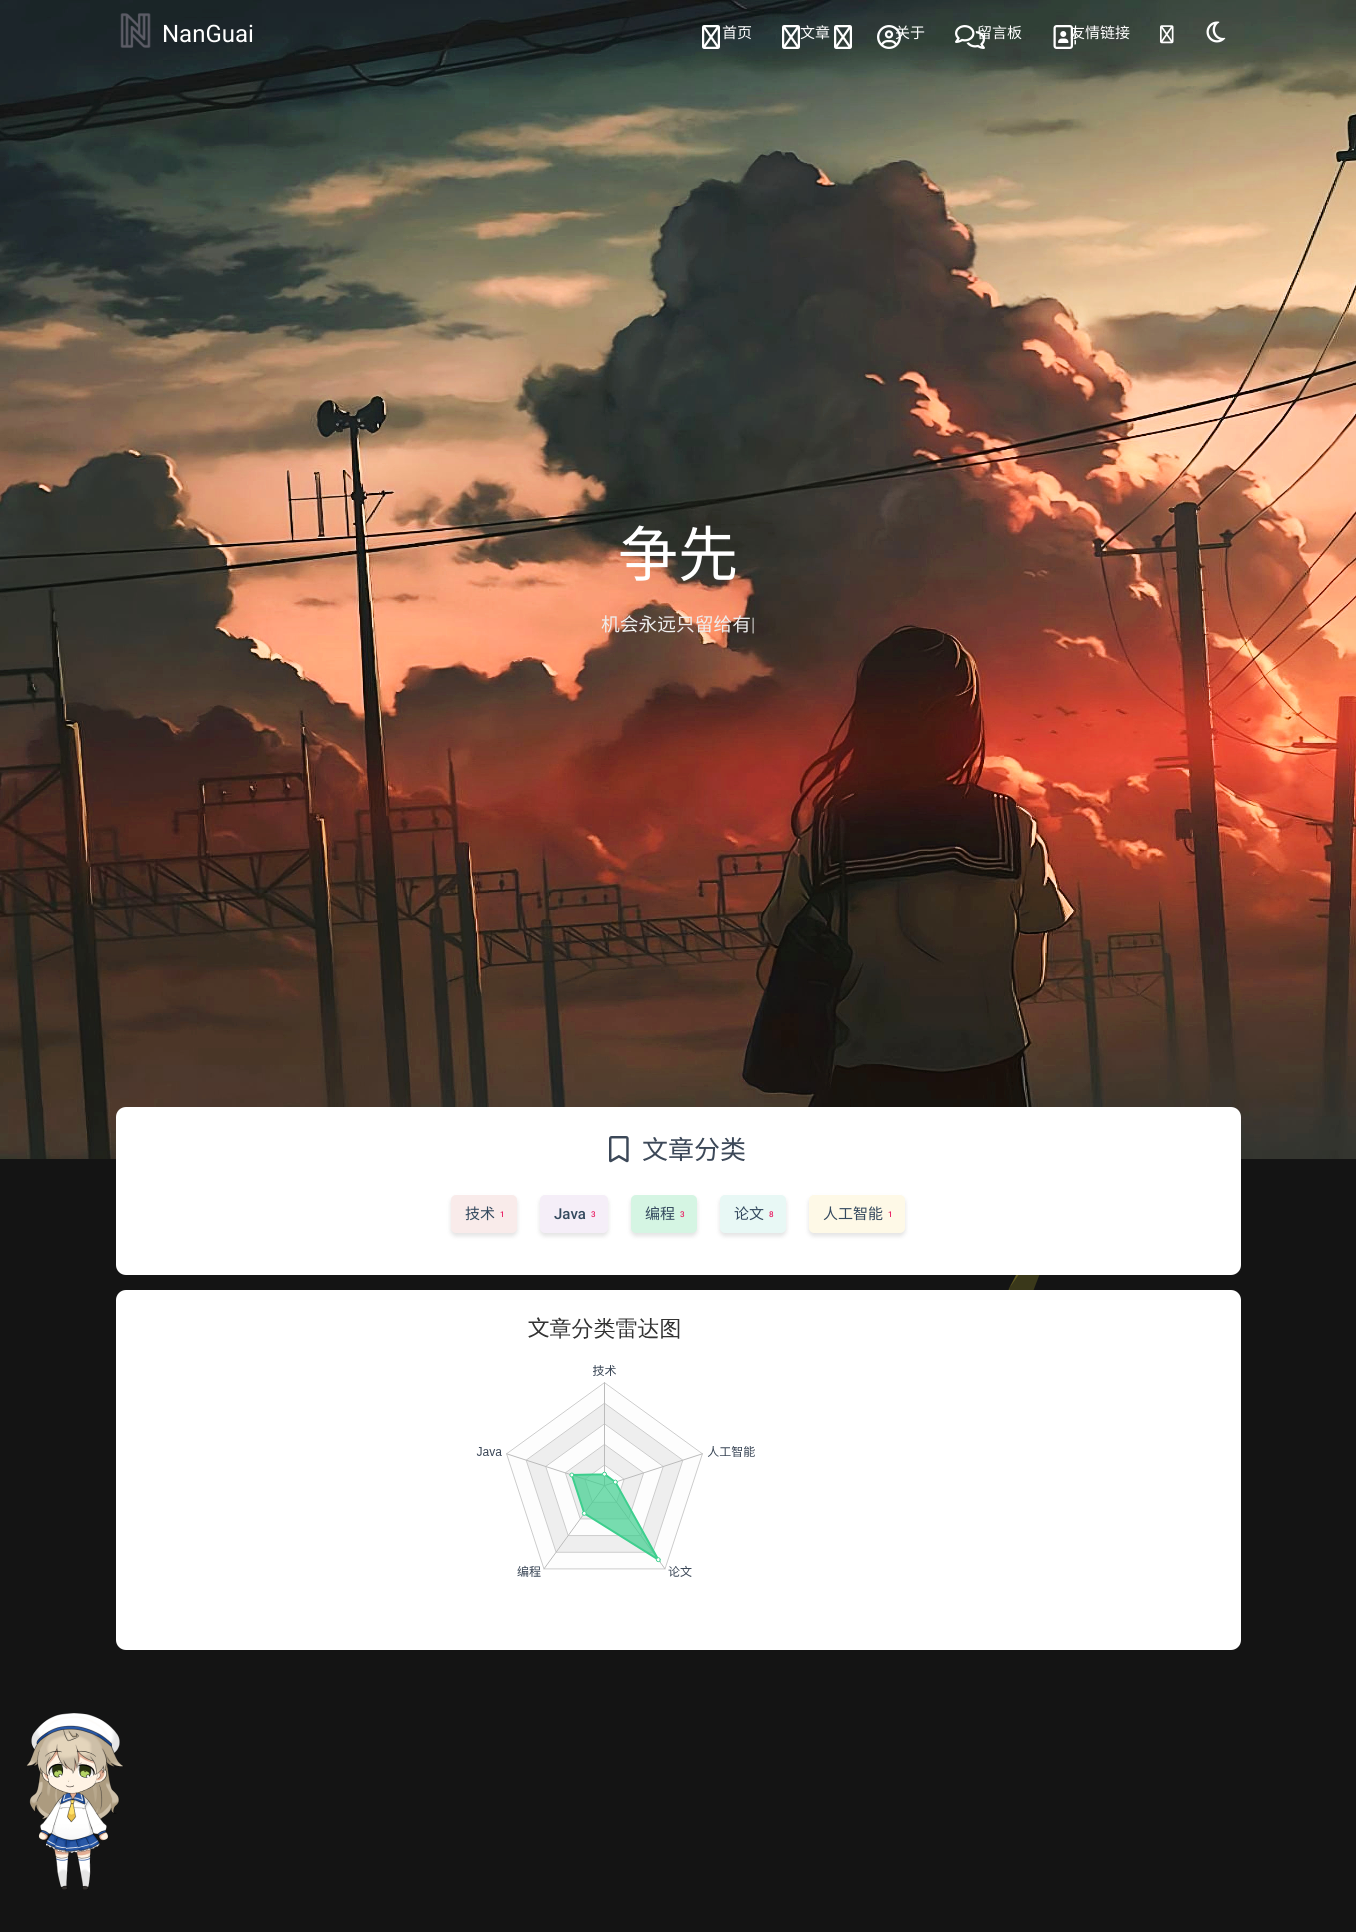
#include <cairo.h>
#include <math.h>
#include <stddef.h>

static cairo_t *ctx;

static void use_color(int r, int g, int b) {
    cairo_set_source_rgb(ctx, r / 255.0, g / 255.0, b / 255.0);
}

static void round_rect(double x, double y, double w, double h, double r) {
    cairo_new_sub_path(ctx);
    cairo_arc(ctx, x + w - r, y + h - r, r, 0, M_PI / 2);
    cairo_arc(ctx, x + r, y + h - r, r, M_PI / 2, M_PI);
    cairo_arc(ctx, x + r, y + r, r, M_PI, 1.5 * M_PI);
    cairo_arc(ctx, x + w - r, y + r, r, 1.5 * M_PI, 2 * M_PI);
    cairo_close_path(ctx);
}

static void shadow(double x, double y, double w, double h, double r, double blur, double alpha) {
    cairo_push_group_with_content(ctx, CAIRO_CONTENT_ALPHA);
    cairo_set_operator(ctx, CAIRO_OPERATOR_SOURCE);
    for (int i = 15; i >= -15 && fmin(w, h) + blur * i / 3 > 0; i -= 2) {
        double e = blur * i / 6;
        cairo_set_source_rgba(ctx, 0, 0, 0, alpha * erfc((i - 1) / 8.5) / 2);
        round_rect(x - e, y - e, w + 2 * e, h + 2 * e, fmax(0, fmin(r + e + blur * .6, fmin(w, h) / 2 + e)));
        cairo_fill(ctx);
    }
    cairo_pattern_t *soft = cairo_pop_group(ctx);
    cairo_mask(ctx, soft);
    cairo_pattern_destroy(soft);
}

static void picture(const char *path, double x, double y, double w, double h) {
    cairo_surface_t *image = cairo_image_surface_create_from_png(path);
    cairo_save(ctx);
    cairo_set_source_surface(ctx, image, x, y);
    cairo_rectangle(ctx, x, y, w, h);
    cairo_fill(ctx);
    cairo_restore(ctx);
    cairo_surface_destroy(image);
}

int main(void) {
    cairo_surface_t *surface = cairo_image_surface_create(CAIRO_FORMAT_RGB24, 1356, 1932);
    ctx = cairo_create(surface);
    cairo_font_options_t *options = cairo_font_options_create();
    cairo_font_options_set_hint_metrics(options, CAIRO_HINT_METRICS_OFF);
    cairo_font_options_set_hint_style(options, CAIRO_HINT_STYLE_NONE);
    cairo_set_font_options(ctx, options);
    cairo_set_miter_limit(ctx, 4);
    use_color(20, 20, 20);
    cairo_paint(ctx);
    picture("img10.png", 0, 0, 1356, 1159);
    picture("img1.png", 120, 13, 31, 35);
    cairo_select_font_face(ctx, "Roboto", CAIRO_FONT_SLANT_NORMAL, CAIRO_FONT_WEIGHT_NORMAL);
    cairo_set_font_size(ctx, 24);
    use_color(255, 255, 255);
    cairo_move_to(ctx, 162, 42);
    cairo_show_text(ctx, "NanGuai");
    picture("img2.png", 702, 25, 18, 24);
    cairo_select_font_face(ctx, "Noto Sans CJK SC", CAIRO_FONT_SLANT_NORMAL, CAIRO_FONT_WEIGHT_NORMAL);
    cairo_set_font_size(ctx, 15);
    cairo_move_to(ctx, 722, 38);
    cairo_show_text(ctx, "首页");
    picture("img3.png", 782, 25, 18, 24);
    cairo_move_to(ctx, 800, 38);
    cairo_show_text(ctx, "文章");
    picture("img4.png", 834, 25, 18, 24);
    picture("img5.png", 877, 25, 24, 24);
    cairo_move_to(ctx, 895, 38);
    cairo_show_text(ctx, "关于");
    picture("img6.png", 955, 25, 30, 24);
    cairo_move_to(ctx, 977, 38);
    cairo_show_text(ctx, "留言板");
    picture("img7.png", 1053, 25, 23, 24);
    cairo_move_to(ctx, 1070, 38);
    cairo_show_text(ctx, "友情链接");
    picture("img8.png", 1160, 25, 14, 19);
    picture("img9.png", 1206, 21, 20, 22);
    cairo_set_font_size(ctx, 60);
    cairo_move_to(ctx, 618, 576);
    cairo_show_text(ctx, "争先");
    cairo_set_font_size(ctx, 18.75);
    use_color(238, 238, 238);
    cairo_move_to(ctx, 601, 631);
    cairo_show_text(ctx, "机会永远只留给有");
    cairo_select_font_face(ctx, "Roboto Light", CAIRO_FONT_SLANT_NORMAL, CAIRO_FONT_WEIGHT_NORMAL);
    cairo_move_to(ctx, 751, 631);
    cairo_show_text(ctx, "|");
    use_color(255, 255, 255);
    round_rect(116, 1107, 1125, 168, 10);
    cairo_fill(ctx);
    picture("img11.png", 609, 1136, 20, 27);
    cairo_select_font_face(ctx, "Noto Sans CJK SC", CAIRO_FONT_SLANT_NORMAL, CAIRO_FONT_WEIGHT_NORMAL);
    cairo_set_font_size(ctx, 26);
    use_color(60, 72, 88);
    cairo_move_to(ctx, 642, 1159);
    cairo_show_text(ctx, "文章分类");
    use_color(0, 0, 0);
    shadow(451, 1198, 66, 38, 5, 2.5, 0.12);
    use_color(249, 235, 234);
    round_rect(451, 1195, 66, 38, 5);
    cairo_fill(ctx);
    cairo_set_font_size(ctx, 15);
    use_color(52, 73, 94);
    cairo_move_to(ctx, 465, 1219);
    cairo_show_text(ctx, "技术");
    cairo_select_font_face(ctx, "Roboto Medium", CAIRO_FONT_SLANT_NORMAL, CAIRO_FONT_WEIGHT_NORMAL);
    cairo_set_font_size(ctx, 8);
    use_color(233, 30, 99);
    cairo_move_to(ctx, 500, 1217);
    cairo_show_text(ctx, "1");
    use_color(0, 0, 0);
    shadow(540, 1198, 68, 38, 5, 2.5, 0.12);
    use_color(245, 238, 248);
    round_rect(540, 1195, 68, 38, 5);
    cairo_fill(ctx);
    cairo_set_font_size(ctx, 15);
    use_color(52, 73, 94);
    cairo_move_to(ctx, 554, 1219);
    cairo_show_text(ctx, "Java");
    cairo_set_font_size(ctx, 8);
    use_color(233, 30, 99);
    cairo_move_to(ctx, 591, 1217);
    cairo_show_text(ctx, "3");
    use_color(0, 0, 0);
    shadow(631, 1198, 66, 38, 5, 2.5, 0.12);
    use_color(213, 245, 227);
    round_rect(631, 1195, 66, 38, 5);
    cairo_fill(ctx);
    cairo_select_font_face(ctx, "Noto Sans CJK SC", CAIRO_FONT_SLANT_NORMAL, CAIRO_FONT_WEIGHT_NORMAL);
    cairo_set_font_size(ctx, 15);
    use_color(52, 73, 94);
    cairo_move_to(ctx, 645, 1219);
    cairo_show_text(ctx, "编程");
    cairo_select_font_face(ctx, "Roboto Medium", CAIRO_FONT_SLANT_NORMAL, CAIRO_FONT_WEIGHT_NORMAL);
    cairo_set_font_size(ctx, 8);
    use_color(233, 30, 99);
    cairo_move_to(ctx, 680, 1217);
    cairo_show_text(ctx, "3");
    use_color(0, 0, 0);
    shadow(720, 1198, 66, 38, 5, 2.5, 0.12);
    use_color(232, 248, 245);
    round_rect(720, 1195, 66, 38, 5);
    cairo_fill(ctx);
    cairo_select_font_face(ctx, "Noto Sans CJK SC", CAIRO_FONT_SLANT_NORMAL, CAIRO_FONT_WEIGHT_NORMAL);
    cairo_set_font_size(ctx, 15);
    use_color(52, 73, 94);
    cairo_move_to(ctx, 734, 1219);
    cairo_show_text(ctx, "论文");
    cairo_select_font_face(ctx, "Roboto Medium", CAIRO_FONT_SLANT_NORMAL, CAIRO_FONT_WEIGHT_NORMAL);
    cairo_set_font_size(ctx, 8);
    use_color(233, 30, 99);
    cairo_move_to(ctx, 769, 1217);
    cairo_show_text(ctx, "8");
    use_color(0, 0, 0);
    shadow(809, 1198, 96, 38, 5, 2.5, 0.12);
    use_color(254, 249, 231);
    round_rect(809, 1195, 96, 38, 5);
    cairo_fill(ctx);
    cairo_select_font_face(ctx, "Noto Sans CJK SC", CAIRO_FONT_SLANT_NORMAL, CAIRO_FONT_WEIGHT_NORMAL);
    cairo_set_font_size(ctx, 15);
    use_color(52, 73, 94);
    cairo_move_to(ctx, 823, 1219);
    cairo_show_text(ctx, "人工智能");
    cairo_select_font_face(ctx, "Roboto Medium", CAIRO_FONT_SLANT_NORMAL, CAIRO_FONT_WEIGHT_NORMAL);
    cairo_set_font_size(ctx, 8);
    use_color(233, 30, 99);
    cairo_move_to(ctx, 888, 1217);
    cairo_show_text(ctx, "1");
    use_color(255, 255, 255);
    round_rect(116, 1290, 1125, 360, 10);
    cairo_fill(ctx);
    picture("img12.png", 476, 1317, 279, 260);
    picture("img13.png", 1008, 1275, 32, 15);
    picture("img14.png", 26, 1713, 98, 177);
    cairo_surface_write_to_png(surface, "result.png");
    cairo_font_options_destroy(options);
    cairo_destroy(ctx);
    cairo_surface_destroy(surface);
    return 0;
}
